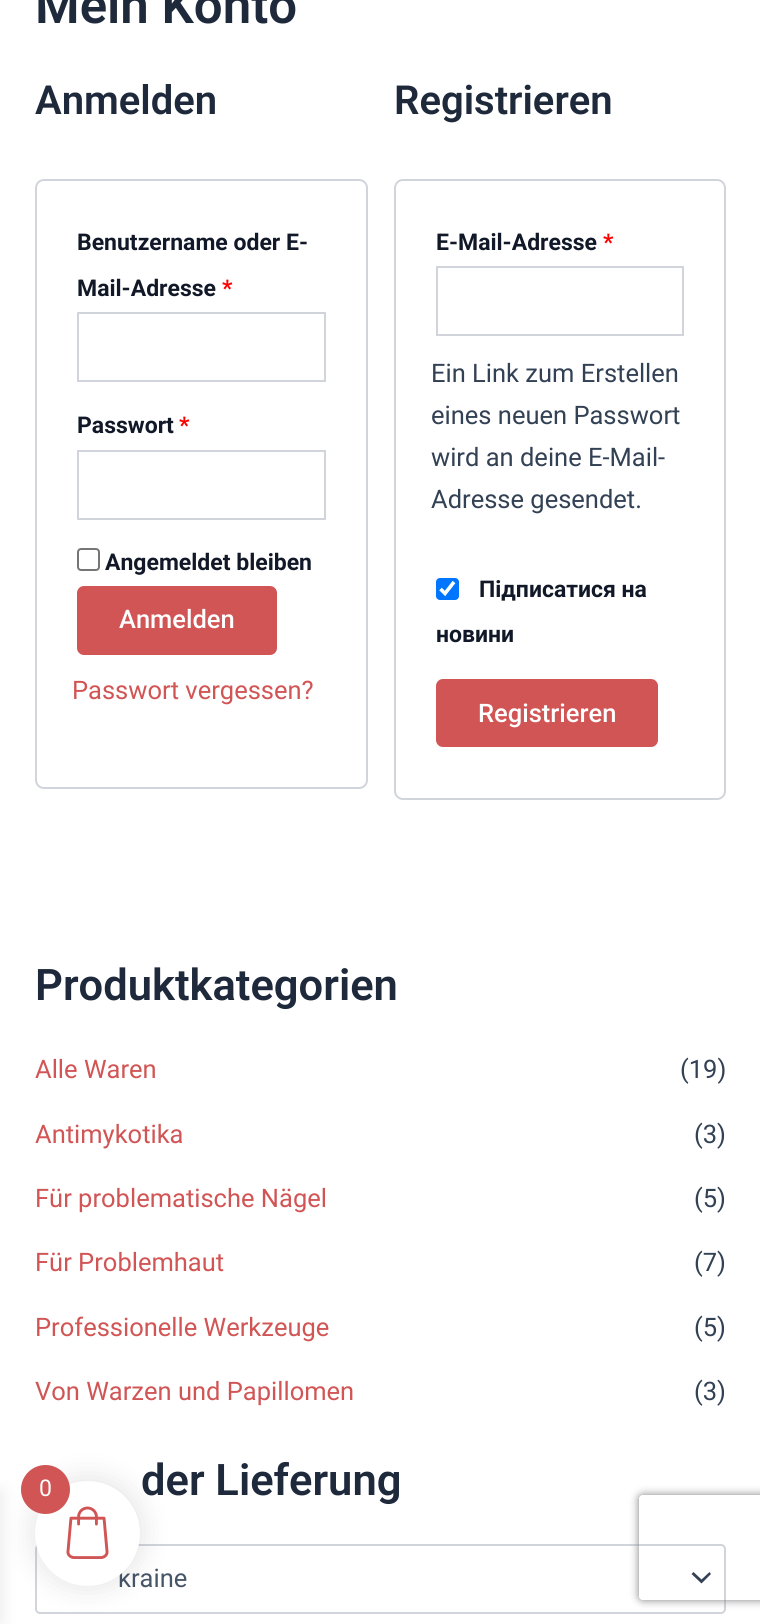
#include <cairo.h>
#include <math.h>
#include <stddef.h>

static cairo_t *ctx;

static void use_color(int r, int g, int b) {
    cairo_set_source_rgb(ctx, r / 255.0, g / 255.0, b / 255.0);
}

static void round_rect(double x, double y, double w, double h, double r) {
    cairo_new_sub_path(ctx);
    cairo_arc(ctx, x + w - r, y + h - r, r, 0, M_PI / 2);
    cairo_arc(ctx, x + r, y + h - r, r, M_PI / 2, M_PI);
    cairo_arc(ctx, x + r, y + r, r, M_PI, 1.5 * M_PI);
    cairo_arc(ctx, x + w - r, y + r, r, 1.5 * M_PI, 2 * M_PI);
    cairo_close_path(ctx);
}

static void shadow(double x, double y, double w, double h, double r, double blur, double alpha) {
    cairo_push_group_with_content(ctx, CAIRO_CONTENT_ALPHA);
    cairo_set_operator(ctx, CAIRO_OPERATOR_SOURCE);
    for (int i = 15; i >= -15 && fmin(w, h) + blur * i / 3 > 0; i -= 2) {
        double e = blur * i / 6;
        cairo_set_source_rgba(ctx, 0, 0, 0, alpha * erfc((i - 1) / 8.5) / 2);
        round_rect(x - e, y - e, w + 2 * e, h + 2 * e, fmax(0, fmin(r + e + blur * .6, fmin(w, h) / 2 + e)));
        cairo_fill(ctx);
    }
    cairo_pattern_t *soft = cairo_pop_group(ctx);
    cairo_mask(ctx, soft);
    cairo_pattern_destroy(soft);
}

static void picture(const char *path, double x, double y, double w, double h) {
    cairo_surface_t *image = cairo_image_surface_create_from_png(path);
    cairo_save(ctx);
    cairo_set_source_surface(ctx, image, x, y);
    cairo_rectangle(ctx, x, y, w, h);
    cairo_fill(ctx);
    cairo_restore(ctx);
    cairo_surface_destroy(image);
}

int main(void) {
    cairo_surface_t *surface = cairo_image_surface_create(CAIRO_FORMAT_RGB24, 760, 1624);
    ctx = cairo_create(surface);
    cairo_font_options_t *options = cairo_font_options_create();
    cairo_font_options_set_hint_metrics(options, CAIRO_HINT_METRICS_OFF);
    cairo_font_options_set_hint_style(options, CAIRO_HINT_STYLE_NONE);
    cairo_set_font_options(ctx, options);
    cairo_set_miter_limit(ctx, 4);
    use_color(255, 255, 255);
    cairo_paint(ctx);
    cairo_select_font_face(ctx, "Roboto SemiBold", CAIRO_FONT_SLANT_NORMAL, CAIRO_FONT_WEIGHT_NORMAL);
    cairo_set_font_size(ctx, 51);
    use_color(30, 41, 59);
    cairo_move_to(ctx, 35, 23);
    cairo_show_text(ctx, "Mein Konto");
    cairo_set_font_size(ctx, 40);
    cairo_move_to(ctx, 35, 114);
    cairo_show_text(ctx, "Anmelden");
    round_rect(36, 180, 331, 608, 8);
    use_color(209, 213, 219);
    cairo_stroke(ctx);
    cairo_select_font_face(ctx, "Roboto", CAIRO_FONT_SLANT_NORMAL, CAIRO_FONT_WEIGHT_BOLD);
    cairo_set_font_size(ctx, 23);
    use_color(17, 24, 39);
    cairo_move_to(ctx, 77, 250);
    cairo_show_text(ctx, "Benutzername oder E-");
    cairo_move_to(ctx, 77, 296);
    cairo_show_text(ctx, "Mail-Adresse");
    use_color(255, 0, 0);
    cairo_move_to(ctx, 222, 296);
    cairo_show_text(ctx, "*");
    cairo_rectangle(ctx, 78, 313, 247, 68);
    use_color(209, 213, 219);
    cairo_stroke(ctx);
    use_color(17, 24, 39);
    cairo_move_to(ctx, 77, 433);
    cairo_show_text(ctx, "Passwort");
    use_color(255, 0, 0);
    cairo_move_to(ctx, 179, 433);
    cairo_show_text(ctx, "*");
    cairo_rectangle(ctx, 78, 451, 247, 68);
    use_color(209, 213, 219);
    cairo_stroke(ctx);
    round_rect(78, 549, 21, 21, 3);
    use_color(118, 118, 118);
    cairo_stroke(ctx);
    use_color(17, 24, 39);
    cairo_move_to(ctx, 105, 570);
    cairo_show_text(ctx, "Angemeldet bleiben");
    use_color(209, 85, 85);
    round_rect(77, 586, 200, 69, 7);
    cairo_fill(ctx);
    cairo_select_font_face(ctx, "Roboto Medium", CAIRO_FONT_SLANT_NORMAL, CAIRO_FONT_WEIGHT_NORMAL);
    cairo_set_font_size(ctx, 25.5);
    use_color(255, 255, 255);
    cairo_move_to(ctx, 119, 628);
    cairo_show_text(ctx, "Anmelden");
    cairo_select_font_face(ctx, "Roboto", CAIRO_FONT_SLANT_NORMAL, CAIRO_FONT_WEIGHT_NORMAL);
    use_color(209, 85, 85);
    cairo_move_to(ctx, 72, 699);
    cairo_show_text(ctx, "Passwort vergessen?");
    cairo_select_font_face(ctx, "Roboto SemiBold", CAIRO_FONT_SLANT_NORMAL, CAIRO_FONT_WEIGHT_NORMAL);
    cairo_set_font_size(ctx, 40);
    use_color(30, 41, 59);
    cairo_move_to(ctx, 394, 114);
    cairo_show_text(ctx, "Registrieren");
    round_rect(395, 180, 330, 619, 8);
    use_color(209, 213, 219);
    cairo_stroke(ctx);
    cairo_select_font_face(ctx, "Roboto", CAIRO_FONT_SLANT_NORMAL, CAIRO_FONT_WEIGHT_BOLD);
    cairo_set_font_size(ctx, 23);
    use_color(17, 24, 39);
    cairo_move_to(ctx, 436, 250);
    cairo_show_text(ctx, "E-Mail-Adresse");
    use_color(255, 0, 0);
    cairo_move_to(ctx, 603, 250);
    cairo_show_text(ctx, "*");
    cairo_rectangle(ctx, 437, 267, 246, 68);
    use_color(209, 213, 219);
    cairo_stroke(ctx);
    cairo_select_font_face(ctx, "Roboto", CAIRO_FONT_SLANT_NORMAL, CAIRO_FONT_WEIGHT_NORMAL);
    cairo_set_font_size(ctx, 25.5);
    use_color(51, 65, 85);
    cairo_move_to(ctx, 431, 382);
    cairo_show_text(ctx, "Ein Link zum Erstellen");
    cairo_move_to(ctx, 431, 424);
    cairo_show_text(ctx, "eines neuen Passwort");
    cairo_move_to(ctx, 431, 466);
    cairo_show_text(ctx, "wird an deine E-Mail-");
    cairo_move_to(ctx, 431, 508);
    cairo_show_text(ctx, "Adresse gesendet.");
    use_color(0, 117, 255);
    round_rect(436, 578, 23, 22, 4);
    cairo_fill(ctx);
    cairo_new_path(ctx);
    cairo_move_to(ctx, 440.5, 589);
    cairo_line_to(ctx, 445, 593.5);
    cairo_line_to(ctx, 454, 582);
    use_color(255, 255, 255);
    cairo_set_line_width(ctx, 3.6);
    cairo_stroke(ctx);
    cairo_select_font_face(ctx, "Roboto", CAIRO_FONT_SLANT_NORMAL, CAIRO_FONT_WEIGHT_BOLD);
    cairo_set_font_size(ctx, 23);
    use_color(17, 24, 39);
    cairo_move_to(ctx, 479, 597);
    cairo_show_text(ctx, "Підписатися на");
    cairo_move_to(ctx, 436, 642);
    cairo_show_text(ctx, "новини");
    use_color(209, 85, 85);
    round_rect(436, 679, 222, 68, 7);
    cairo_fill(ctx);
    cairo_select_font_face(ctx, "Roboto Medium", CAIRO_FONT_SLANT_NORMAL, CAIRO_FONT_WEIGHT_NORMAL);
    cairo_set_font_size(ctx, 25.5);
    use_color(255, 255, 255);
    cairo_move_to(ctx, 478, 722);
    cairo_show_text(ctx, "Registrieren");
    cairo_select_font_face(ctx, "Roboto SemiBold", CAIRO_FONT_SLANT_NORMAL, CAIRO_FONT_WEIGHT_NORMAL);
    cairo_set_font_size(ctx, 43.5);
    use_color(30, 41, 59);
    cairo_move_to(ctx, 35, 1000);
    cairo_show_text(ctx, "Produktkategorien");
    cairo_select_font_face(ctx, "Roboto", CAIRO_FONT_SLANT_NORMAL, CAIRO_FONT_WEIGHT_NORMAL);
    cairo_set_font_size(ctx, 25.5);
    use_color(209, 85, 85);
    cairo_move_to(ctx, 35, 1078);
    cairo_show_text(ctx, "Alle Waren");
    use_color(51, 65, 85);
    cairo_move_to(ctx, 680, 1078);
    cairo_show_text(ctx, "(19)");
    use_color(209, 85, 85);
    cairo_move_to(ctx, 35, 1143);
    cairo_show_text(ctx, "Antimykotika");
    use_color(51, 65, 85);
    cairo_move_to(ctx, 694, 1143);
    cairo_show_text(ctx, "(3)");
    use_color(209, 85, 85);
    cairo_move_to(ctx, 35, 1207);
    cairo_show_text(ctx, "Für problematische Nägel");
    use_color(51, 65, 85);
    cairo_move_to(ctx, 694, 1207);
    cairo_show_text(ctx, "(5)");
    use_color(209, 85, 85);
    cairo_move_to(ctx, 35, 1271);
    cairo_show_text(ctx, "Für Problemhaut");
    use_color(51, 65, 85);
    cairo_move_to(ctx, 694, 1271);
    cairo_show_text(ctx, "(7)");
    use_color(209, 85, 85);
    cairo_move_to(ctx, 35, 1336);
    cairo_show_text(ctx, "Professionelle Werkzeuge");
    use_color(51, 65, 85);
    cairo_move_to(ctx, 694, 1336);
    cairo_show_text(ctx, "(5)");
    use_color(209, 85, 85);
    cairo_move_to(ctx, 35, 1400);
    cairo_show_text(ctx, "Von Warzen und Papillomen");
    use_color(51, 65, 85);
    cairo_move_to(ctx, 694, 1400);
    cairo_show_text(ctx, "(3)");
    cairo_select_font_face(ctx, "Roboto SemiBold", CAIRO_FONT_SLANT_NORMAL, CAIRO_FONT_WEIGHT_NORMAL);
    cairo_set_font_size(ctx, 43.5);
    use_color(30, 41, 59);
    cairo_move_to(ctx, 141, 1495);
    cairo_show_text(ctx, "der Lieferung");
    use_color(51, 65, 85);
    cairo_new_path(ctx);
    cairo_move_to(ctx, 691.5, 1574);
    cairo_line_to(ctx, 701.5, 1583.5);
    cairo_line_to(ctx, 711, 1574);
    cairo_line_to(ctx, 709.5, 1572);
    cairo_line_to(ctx, 701.5, 1579.5);
    cairo_line_to(ctx, 693.5, 1572);
    cairo_close_path(ctx);
    cairo_fill(ctx);
    round_rect(36, 1545, 689, 68, 4);
    use_color(209, 213, 219);
    cairo_set_line_width(ctx, 2);
    cairo_stroke(ctx);
    cairo_select_font_face(ctx, "Roboto", CAIRO_FONT_SLANT_NORMAL, CAIRO_FONT_WEIGHT_NORMAL);
    cairo_set_font_size(ctx, 25.5);
    use_color(71, 85, 105);
    cairo_move_to(ctx, 118, 1587);
    cairo_show_text(ctx, "kraine");
    use_color(0, 0, 0);
    shadow(-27, 1493, 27, 129, 0, 9, 0.1);
    shadow(32, 1477, 112, 112, 56, 13, 0.1);
    use_color(255, 255, 255);
    cairo_arc(ctx, 87.5, 1533.5, 52.5, 0, 2 * M_PI);
    cairo_fill(ctx);
    picture("img1.png", 66, 1506, 43, 53);
    use_color(209, 85, 85);
    cairo_arc(ctx, 45.5, 1489.5, 24.5, 0, 2 * M_PI);
    cairo_fill(ctx);
    cairo_set_font_size(ctx, 23);
    use_color(255, 255, 255);
    cairo_move_to(ctx, 39, 1496);
    cairo_show_text(ctx, "0");
    cairo_save(ctx);
    cairo_set_fill_rule(ctx, CAIRO_FILL_RULE_EVEN_ODD);
    cairo_new_path(ctx);
    cairo_move_to(ctx, 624, 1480);
    cairo_line_to(ctx, 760, 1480);
    cairo_line_to(ctx, 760, 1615);
    cairo_line_to(ctx, 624, 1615);
    cairo_close_path(ctx);
    cairo_move_to(ctx, 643, 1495);
    cairo_line_to(ctx, 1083, 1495);
    cairo_curve_to(ctx, 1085, 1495, 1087, 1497, 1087, 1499);
    cairo_line_to(ctx, 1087, 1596);
    cairo_curve_to(ctx, 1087, 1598, 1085, 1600, 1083, 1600);
    cairo_line_to(ctx, 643, 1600);
    cairo_curve_to(ctx, 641, 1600, 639, 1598, 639, 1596);
    cairo_line_to(ctx, 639, 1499);
    cairo_curve_to(ctx, 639, 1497, 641, 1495, 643, 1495);
    cairo_close_path(ctx);
    cairo_clip(ctx);
    use_color(128, 128, 128);
    shadow(639, 1495, 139, 105, 4, 4.5, 1);
    cairo_restore(ctx);
    cairo_surface_write_to_png(surface, "result.png");
    cairo_font_options_destroy(options);
    cairo_destroy(ctx);
    cairo_surface_destroy(surface);
    return 0;
}
